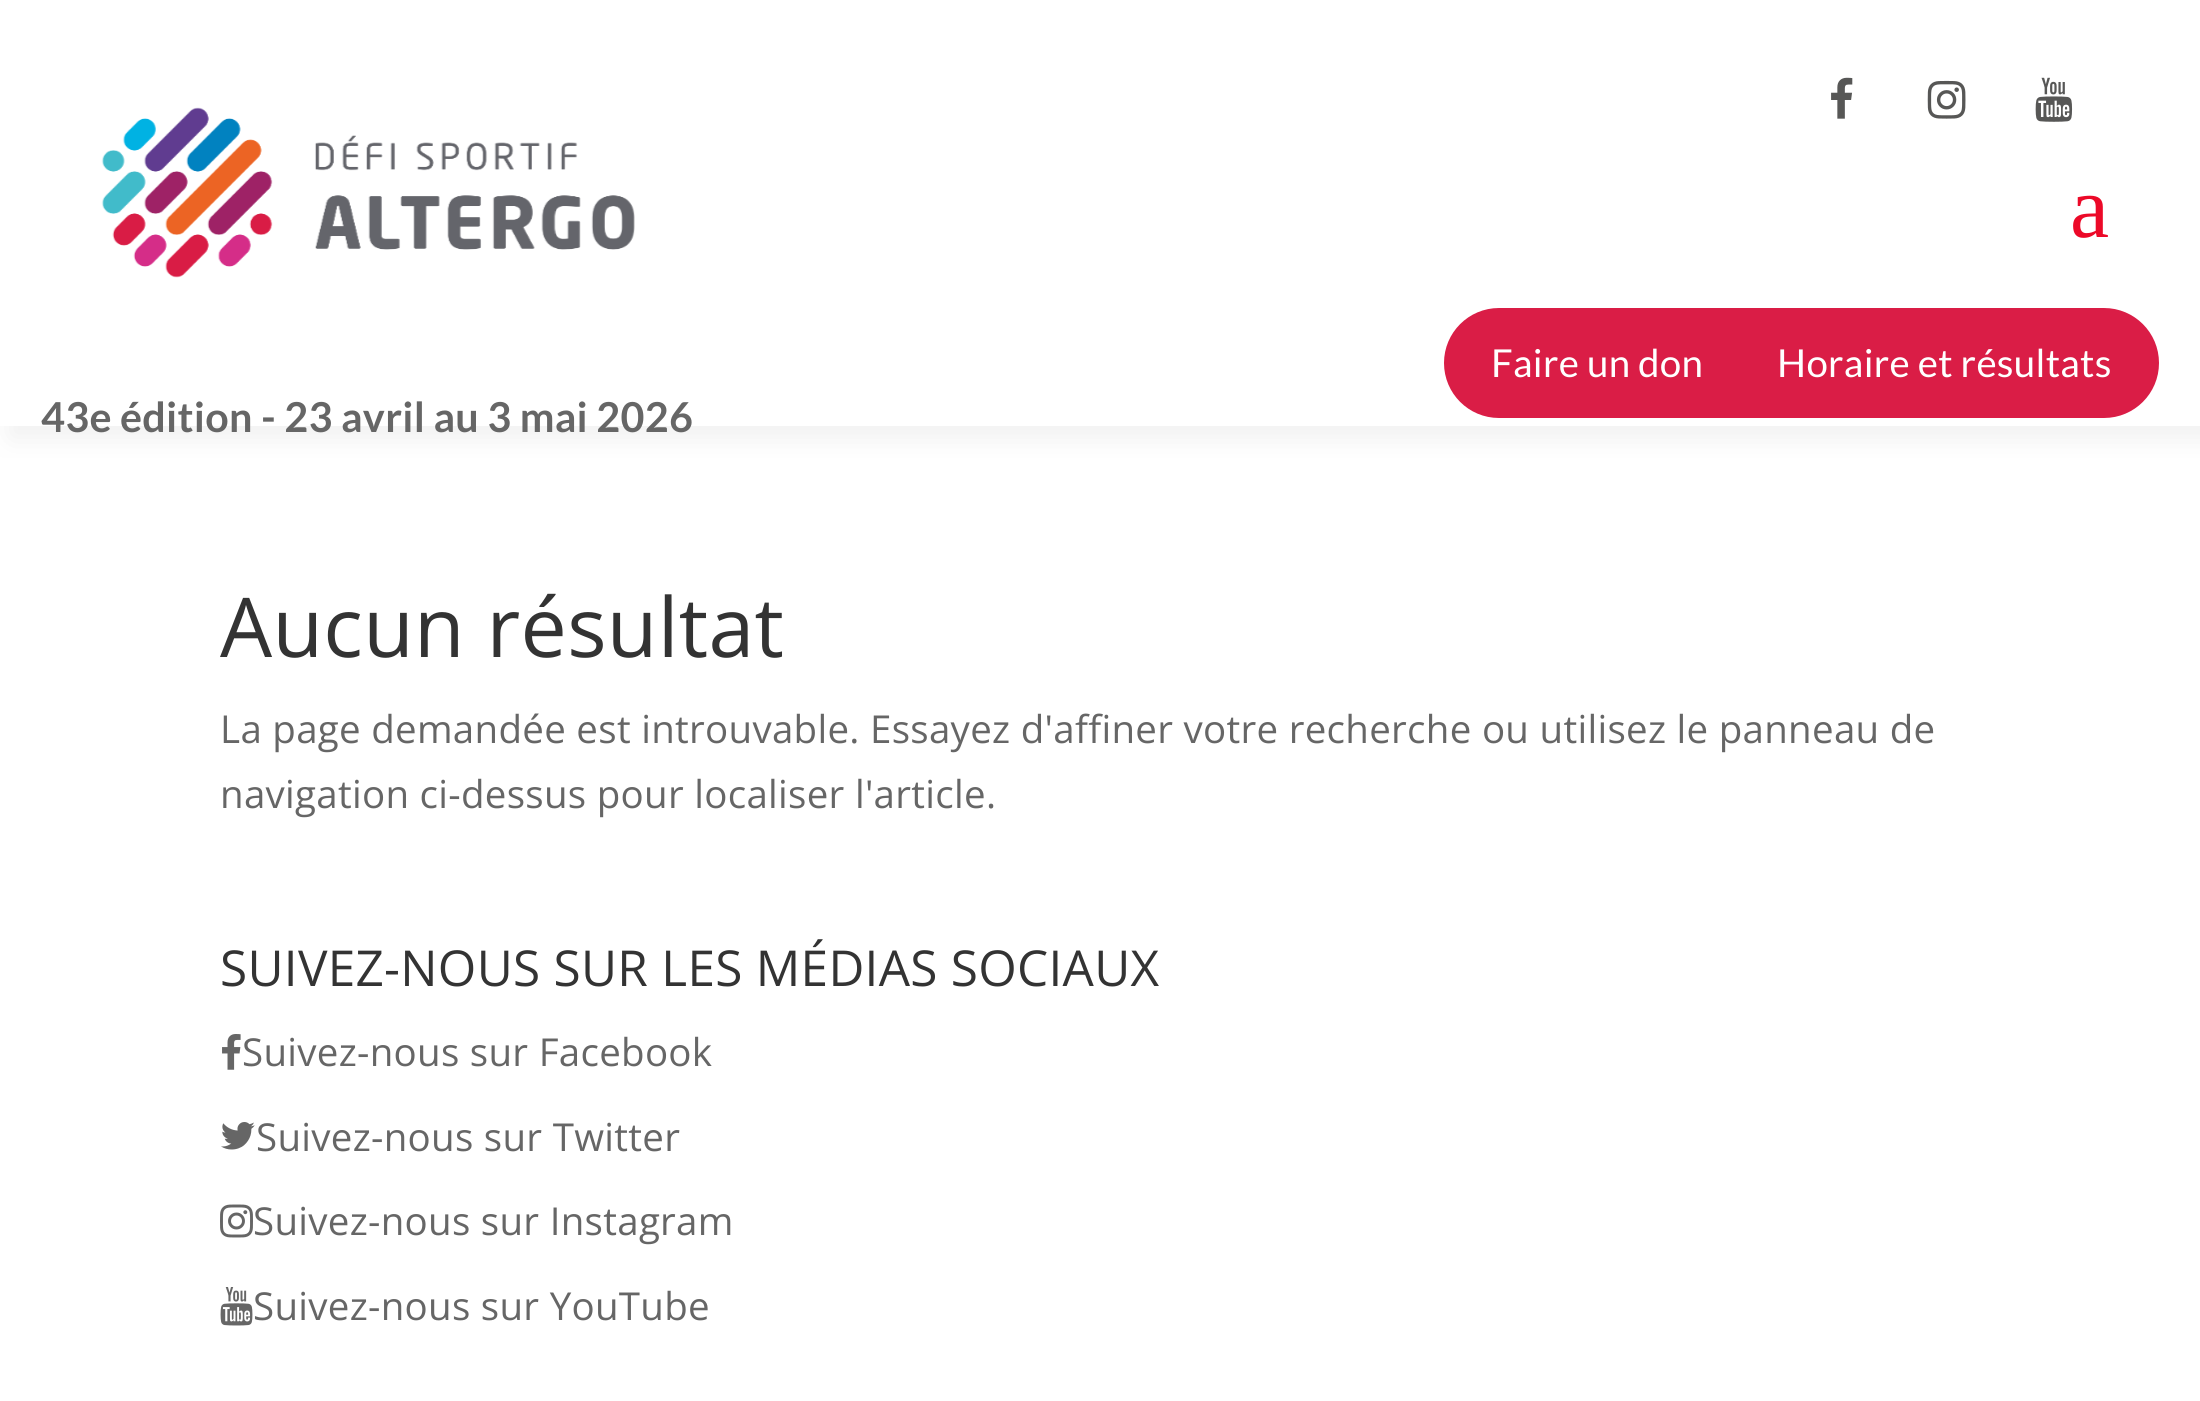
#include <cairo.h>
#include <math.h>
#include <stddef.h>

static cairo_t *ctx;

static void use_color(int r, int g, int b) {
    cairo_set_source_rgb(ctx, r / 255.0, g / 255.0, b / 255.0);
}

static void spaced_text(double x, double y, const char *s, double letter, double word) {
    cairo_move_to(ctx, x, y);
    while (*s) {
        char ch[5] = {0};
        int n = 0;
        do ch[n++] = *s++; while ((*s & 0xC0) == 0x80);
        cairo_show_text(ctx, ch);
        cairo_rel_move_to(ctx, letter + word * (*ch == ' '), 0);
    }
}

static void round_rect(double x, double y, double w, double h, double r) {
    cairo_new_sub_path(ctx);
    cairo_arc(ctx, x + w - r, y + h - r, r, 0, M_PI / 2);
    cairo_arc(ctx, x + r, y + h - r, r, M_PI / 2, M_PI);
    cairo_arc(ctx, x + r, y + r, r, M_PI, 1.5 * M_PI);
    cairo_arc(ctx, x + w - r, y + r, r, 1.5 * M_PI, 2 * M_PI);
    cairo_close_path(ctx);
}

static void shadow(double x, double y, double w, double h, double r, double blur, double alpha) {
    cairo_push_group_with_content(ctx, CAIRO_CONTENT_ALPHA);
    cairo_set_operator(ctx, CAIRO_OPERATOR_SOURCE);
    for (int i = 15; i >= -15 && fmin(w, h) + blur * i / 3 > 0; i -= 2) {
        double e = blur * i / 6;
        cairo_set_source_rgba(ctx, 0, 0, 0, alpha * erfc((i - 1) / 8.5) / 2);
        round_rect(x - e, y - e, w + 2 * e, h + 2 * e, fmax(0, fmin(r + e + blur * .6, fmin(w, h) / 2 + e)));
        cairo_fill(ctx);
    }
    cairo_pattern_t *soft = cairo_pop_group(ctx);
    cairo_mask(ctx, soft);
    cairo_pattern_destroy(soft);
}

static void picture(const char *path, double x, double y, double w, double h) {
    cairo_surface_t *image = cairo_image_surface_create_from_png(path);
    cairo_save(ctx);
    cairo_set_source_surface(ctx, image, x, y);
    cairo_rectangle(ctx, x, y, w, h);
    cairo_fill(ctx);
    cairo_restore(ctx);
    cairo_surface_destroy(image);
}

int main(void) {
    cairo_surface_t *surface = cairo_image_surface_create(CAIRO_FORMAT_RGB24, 2200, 1401);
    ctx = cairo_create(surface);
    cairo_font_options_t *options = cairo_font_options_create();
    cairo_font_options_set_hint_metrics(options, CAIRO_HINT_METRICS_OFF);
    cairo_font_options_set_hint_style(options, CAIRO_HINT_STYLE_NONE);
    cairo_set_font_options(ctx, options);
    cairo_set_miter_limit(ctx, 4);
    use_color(255, 255, 255);
    cairo_paint(ctx);
    cairo_save(ctx);
    cairo_rectangle(ctx, 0, 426, 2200, 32);
    cairo_clip(ctx);
    use_color(204, 204, 204);
    shadow(11, 11, 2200, 426, 0, 14, 0.3);
    cairo_restore(ctx);
    picture("img1.png", 1831, 77, 22, 42);
    picture("img2.png", 1927, 80, 39, 39);
    picture("img3.png", 2035, 77, 38, 45);
    cairo_select_font_face(ctx, "Liberation Serif", CAIRO_FONT_SLANT_NORMAL, CAIRO_FONT_WEIGHT_NORMAL);
    cairo_set_font_size(ctx, 88);
    use_color(236, 9, 40);
    spaced_text(2070, 237, "a", 0.28, 0);
    use_color(218, 29, 70);
    round_rect(1444, 308, 715, 110, 55);
    cairo_fill(ctx);
    cairo_select_font_face(ctx, "Lato", CAIRO_FONT_SLANT_NORMAL, CAIRO_FONT_WEIGHT_NORMAL);
    cairo_set_font_size(ctx, 38.5);
    use_color(255, 255, 255);
    spaced_text(1491, 377, "Faire un don", 0.28, 0);
    spaced_text(1777, 377, "Horaire et résultats", 0.28, 0);
    picture("img4.png", 101, 107, 534, 171);
    cairo_select_font_face(ctx, "Lato", CAIRO_FONT_SLANT_NORMAL, CAIRO_FONT_WEIGHT_BOLD);
    cairo_set_font_size(ctx, 41.25);
    use_color(102, 102, 102);
    spaced_text(41, 432, "43e édition - 23 avril au 3 mai 2026", 0.28, 0);
    cairo_select_font_face(ctx, "Open Sans", CAIRO_FONT_SLANT_NORMAL, CAIRO_FONT_WEIGHT_NORMAL);
    cairo_set_font_size(ctx, 82.5);
    use_color(51, 51, 51);
    spaced_text(220, 657, "Aucun résultat", 0.28, 0);
    cairo_set_font_size(ctx, 38.5);
    use_color(102, 102, 102);
    spaced_text(220, 743, "La page demandée est introuvable. Essayez d'affiner votre recherche ou utilisez le panneau de", 0.28, 0);
    spaced_text(220, 808, "navigation ci-dessus pour localiser l'article.", 0.28, 0);
    cairo_set_font_size(ctx, 49.5);
    use_color(51, 51, 51);
    spaced_text(220, 986, "SUIVEZ-NOUS SUR LES MÉDIAS SOCIAUX", 0.28, 0);
    picture("img5.png", 222, 1034, 19, 36);
    cairo_set_font_size(ctx, 38.5);
    use_color(102, 102, 102);
    spaced_text(242, 1066, "Suivez-nous sur Facebook", 0.28, 0);
    picture("img6.png", 221, 1122, 34, 28);
    spaced_text(256, 1151, "Suivez-nous sur Twitter", 0.28, 0);
    picture("img7.png", 220, 1204, 33, 34);
    spaced_text(253, 1235, "Suivez-nous sur Instagram", 0.28, 0);
    picture("img8.png", 220, 1287, 33, 39);
    spaced_text(253, 1320, "Suivez-nous sur YouTube", 0.28, 0);
    cairo_surface_write_to_png(surface, "result.png");
    cairo_font_options_destroy(options);
    cairo_destroy(ctx);
    cairo_surface_destroy(surface);
    return 0;
}
